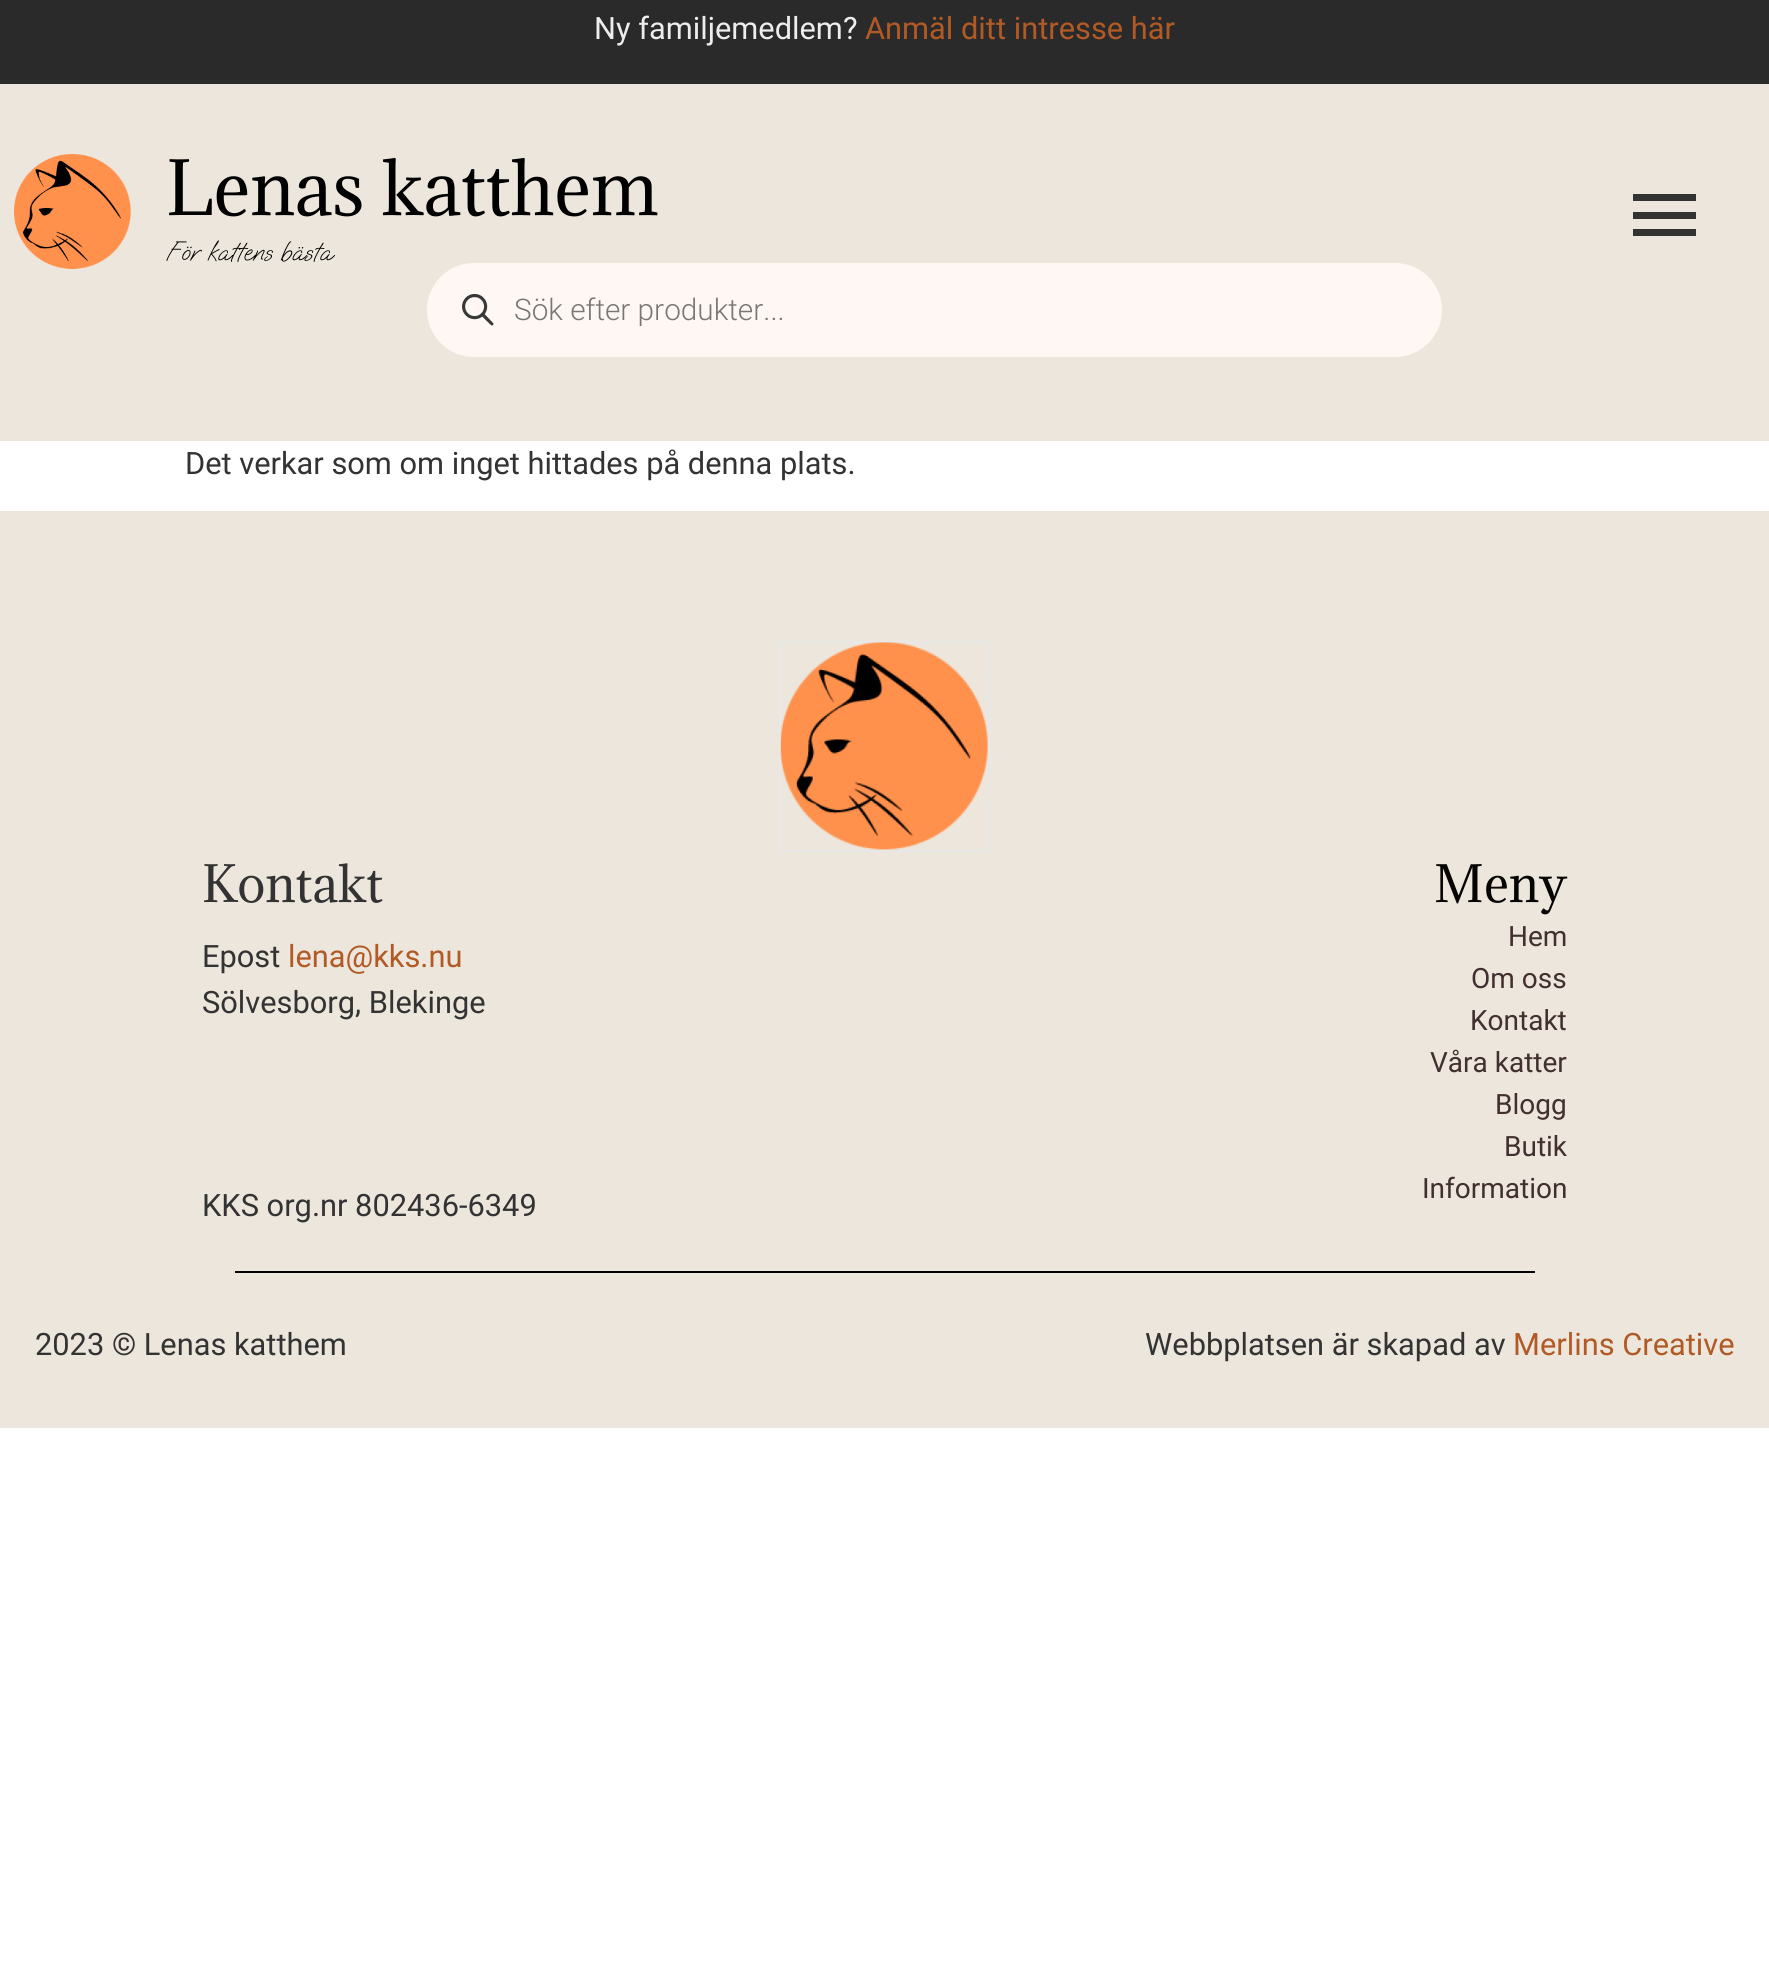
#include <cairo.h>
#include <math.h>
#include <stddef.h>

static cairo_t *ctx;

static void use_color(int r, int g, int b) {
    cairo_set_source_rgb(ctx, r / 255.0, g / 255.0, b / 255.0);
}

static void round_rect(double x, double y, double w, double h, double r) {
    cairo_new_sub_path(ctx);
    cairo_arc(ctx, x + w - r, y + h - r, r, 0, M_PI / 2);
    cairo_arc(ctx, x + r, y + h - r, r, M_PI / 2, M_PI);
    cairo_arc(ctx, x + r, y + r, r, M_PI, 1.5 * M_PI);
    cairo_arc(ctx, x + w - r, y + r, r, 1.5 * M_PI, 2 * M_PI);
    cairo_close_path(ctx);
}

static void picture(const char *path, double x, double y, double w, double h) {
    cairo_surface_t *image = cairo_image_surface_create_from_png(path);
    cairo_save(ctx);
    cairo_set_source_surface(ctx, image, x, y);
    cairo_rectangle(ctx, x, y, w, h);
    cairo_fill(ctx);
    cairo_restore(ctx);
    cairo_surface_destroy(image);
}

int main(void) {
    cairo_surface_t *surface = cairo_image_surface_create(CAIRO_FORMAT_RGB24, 1769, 1970);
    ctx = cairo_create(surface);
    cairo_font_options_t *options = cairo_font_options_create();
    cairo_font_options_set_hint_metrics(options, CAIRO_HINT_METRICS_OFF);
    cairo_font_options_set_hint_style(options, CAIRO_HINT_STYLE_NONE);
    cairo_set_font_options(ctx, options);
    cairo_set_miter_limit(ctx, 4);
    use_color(255, 255, 255);
    cairo_paint(ctx);
    use_color(42, 42, 42);
    cairo_rectangle(ctx, 0, 0, 1769, 84);
    cairo_fill(ctx);
    cairo_select_font_face(ctx, "Roboto", CAIRO_FONT_SLANT_NORMAL, CAIRO_FONT_WEIGHT_NORMAL);
    cairo_set_font_size(ctx, 30.8);
    use_color(237, 237, 237);
    cairo_move_to(ctx, 594, 39);
    cairo_show_text(ctx, "Ny familjemedlem?");
    use_color(177, 90, 37);
    cairo_move_to(ctx, 865, 39);
    cairo_show_text(ctx, "Anmäl ditt intresse här");
    use_color(236, 230, 220);
    cairo_rectangle(ctx, 0, 84, 1769, 357);
    cairo_fill(ctx);
    picture("img1.png", 14, 154, 117, 115);
    cairo_select_font_face(ctx, "Adamina", CAIRO_FONT_SLANT_NORMAL, CAIRO_FONT_WEIGHT_NORMAL);
    cairo_set_font_size(ctx, 70);
    use_color(0, 0, 0);
    cairo_move_to(ctx, 166, 215);
    cairo_show_text(ctx, "Lenas katthem");
    cairo_select_font_face(ctx, "Oooh Baby", CAIRO_FONT_SLANT_NORMAL, CAIRO_FONT_WEIGHT_NORMAL);
    cairo_set_font_size(ctx, 28);
    cairo_move_to(ctx, 166, 260);
    cairo_show_text(ctx, "För kattens bästa");
    use_color(51, 51, 51);
    cairo_rectangle(ctx, 1633, 194, 63, 7);
    cairo_fill(ctx);
    cairo_rectangle(ctx, 1633, 212, 63, 7);
    cairo_fill(ctx);
    cairo_rectangle(ctx, 1633, 229, 63, 7);
    cairo_fill(ctx);
    use_color(255, 247, 244);
    round_rect(427, 263, 1015, 94, 47);
    cairo_fill(ctx);
    picture("img2.png", 462, 294, 32, 32);
    cairo_select_font_face(ctx, "Roboto Light", CAIRO_FONT_SLANT_NORMAL, CAIRO_FONT_WEIGHT_NORMAL);
    cairo_set_font_size(ctx, 29.75);
    use_color(119, 119, 119);
    cairo_move_to(ctx, 514, 320);
    cairo_show_text(ctx, "Sök efter produkter...");
    cairo_select_font_face(ctx, "Roboto", CAIRO_FONT_SLANT_NORMAL, CAIRO_FONT_WEIGHT_NORMAL);
    cairo_set_font_size(ctx, 30.8);
    use_color(51, 51, 51);
    cairo_move_to(ctx, 185, 474);
    cairo_show_text(ctx, "Det verkar som om inget hittades på denna plats.");
    use_color(236, 230, 220);
    cairo_rectangle(ctx, 0, 511, 1769, 917);
    cairo_fill(ctx);
    round_rect(780, 642, 210, 209, 3);
    use_color(232, 232, 232);
    cairo_stroke(ctx);
    picture("img3.png", 780, 642, 208, 208);
    cairo_select_font_face(ctx, "Adamina", CAIRO_FONT_SLANT_NORMAL, CAIRO_FONT_WEIGHT_NORMAL);
    cairo_set_font_size(ctx, 47.5);
    use_color(51, 51, 51);
    cairo_move_to(ctx, 202, 902);
    cairo_show_text(ctx, "Kontakt");
    cairo_select_font_face(ctx, "Roboto", CAIRO_FONT_SLANT_NORMAL, CAIRO_FONT_WEIGHT_NORMAL);
    cairo_set_font_size(ctx, 30.8);
    cairo_move_to(ctx, 202, 967);
    cairo_show_text(ctx, "Epost");
    use_color(177, 90, 37);
    cairo_move_to(ctx, 288, 967);
    cairo_show_text(ctx, "lena@kks.nu");
    use_color(51, 51, 51);
    cairo_move_to(ctx, 202, 1013);
    cairo_show_text(ctx, "Sölvesborg, Blekinge");
    cairo_move_to(ctx, 202, 1216);
    cairo_show_text(ctx, "KKS org.nr 802436-6349");
    cairo_select_font_face(ctx, "Adamina", CAIRO_FONT_SLANT_NORMAL, CAIRO_FONT_WEIGHT_NORMAL);
    cairo_set_font_size(ctx, 47.5);
    use_color(6, 5, 3);
    cairo_move_to(ctx, 1434, 902);
    cairo_show_text(ctx, "Meny");
    cairo_select_font_face(ctx, "Roboto", CAIRO_FONT_SLANT_NORMAL, CAIRO_FONT_WEIGHT_NORMAL);
    cairo_set_font_size(ctx, 28);
    use_color(66, 48, 48);
    cairo_move_to(ctx, 1508, 946);
    cairo_show_text(ctx, "Hem");
    cairo_move_to(ctx, 1471, 988);
    cairo_show_text(ctx, "Om oss");
    cairo_move_to(ctx, 1470, 1030);
    cairo_show_text(ctx, "Kontakt");
    cairo_move_to(ctx, 1430, 1072);
    cairo_show_text(ctx, "Våra katter");
    cairo_move_to(ctx, 1495, 1114);
    cairo_show_text(ctx, "Blogg");
    cairo_move_to(ctx, 1504, 1156);
    cairo_show_text(ctx, "Butik");
    cairo_move_to(ctx, 1422, 1198);
    cairo_show_text(ctx, "Information");
    use_color(0, 0, 0);
    cairo_rectangle(ctx, 235, 1271, 1300, 2);
    cairo_fill(ctx);
    cairo_set_font_size(ctx, 30.8);
    use_color(51, 51, 51);
    cairo_move_to(ctx, 35, 1355);
    cairo_show_text(ctx, "2023 © Lenas katthem");
    cairo_move_to(ctx, 1145, 1355);
    cairo_show_text(ctx, "Webbplatsen är skapad av");
    use_color(177, 90, 37);
    cairo_move_to(ctx, 1513, 1355);
    cairo_show_text(ctx, "Merlins Creative");
    cairo_surface_write_to_png(surface, "result.png");
    cairo_font_options_destroy(options);
    cairo_destroy(ctx);
    cairo_surface_destroy(surface);
    return 0;
}
